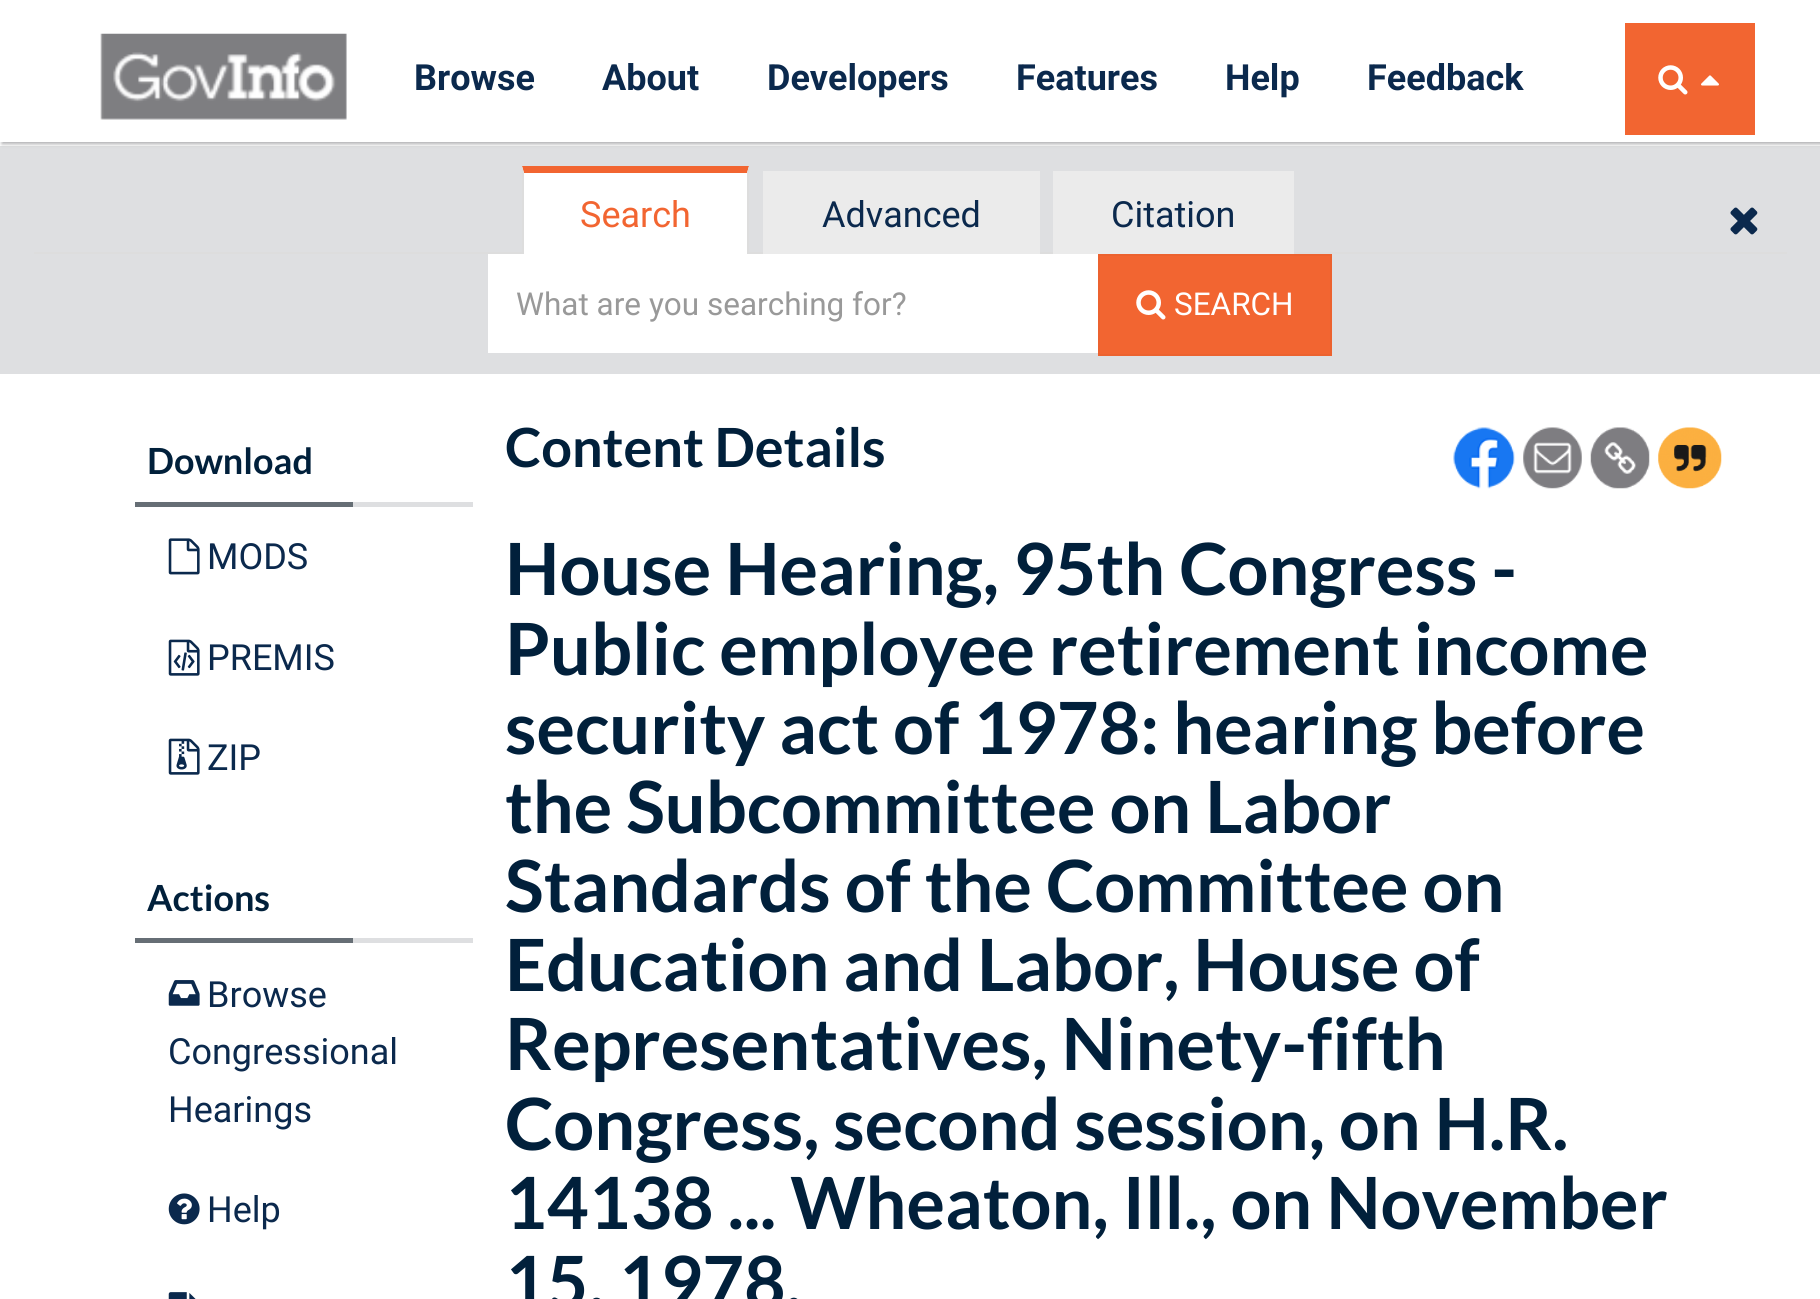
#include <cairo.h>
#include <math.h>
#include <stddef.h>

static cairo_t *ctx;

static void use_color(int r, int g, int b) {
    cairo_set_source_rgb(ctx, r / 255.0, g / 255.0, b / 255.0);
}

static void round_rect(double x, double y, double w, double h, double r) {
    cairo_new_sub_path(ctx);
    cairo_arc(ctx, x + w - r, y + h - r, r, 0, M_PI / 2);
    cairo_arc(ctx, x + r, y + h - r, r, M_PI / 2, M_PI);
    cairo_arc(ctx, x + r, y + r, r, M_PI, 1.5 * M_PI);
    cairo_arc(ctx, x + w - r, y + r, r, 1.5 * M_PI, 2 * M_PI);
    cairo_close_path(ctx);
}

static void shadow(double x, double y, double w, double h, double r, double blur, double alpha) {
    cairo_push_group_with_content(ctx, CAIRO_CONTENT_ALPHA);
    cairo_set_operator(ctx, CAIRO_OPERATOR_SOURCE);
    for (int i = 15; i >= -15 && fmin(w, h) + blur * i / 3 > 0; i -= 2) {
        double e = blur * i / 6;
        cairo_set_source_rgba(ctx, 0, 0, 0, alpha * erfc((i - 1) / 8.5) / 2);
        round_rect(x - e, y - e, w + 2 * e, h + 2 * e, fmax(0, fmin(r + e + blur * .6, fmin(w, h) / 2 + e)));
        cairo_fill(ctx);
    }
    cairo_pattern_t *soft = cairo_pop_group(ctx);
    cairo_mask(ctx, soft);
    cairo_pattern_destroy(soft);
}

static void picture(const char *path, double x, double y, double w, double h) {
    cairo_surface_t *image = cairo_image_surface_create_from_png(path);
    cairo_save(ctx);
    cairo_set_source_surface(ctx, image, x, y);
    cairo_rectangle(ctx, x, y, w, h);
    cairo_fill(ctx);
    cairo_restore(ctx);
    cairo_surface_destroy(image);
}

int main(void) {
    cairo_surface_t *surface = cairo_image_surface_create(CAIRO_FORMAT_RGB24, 1820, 1299);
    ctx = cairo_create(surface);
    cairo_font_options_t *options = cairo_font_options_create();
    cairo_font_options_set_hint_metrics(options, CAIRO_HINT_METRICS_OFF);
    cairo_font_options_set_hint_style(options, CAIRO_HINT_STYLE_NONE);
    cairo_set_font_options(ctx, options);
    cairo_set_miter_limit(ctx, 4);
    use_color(255, 255, 255);
    cairo_paint(ctx);
    use_color(222, 223, 225);
    cairo_rectangle(ctx, 0, 146, 1820, 228);
    cairo_fill(ctx);
    use_color(172, 172, 174);
    shadow(2, 2, 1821, 142, 0, 2, 1);
    use_color(255, 255, 255);
    cairo_rectangle(ctx, 0, 0, 1820, 142);
    cairo_fill(ctx);
    picture("img1.png", 100, 33, 247, 87);
    cairo_select_font_face(ctx, "Roboto", CAIRO_FONT_SLANT_NORMAL, CAIRO_FONT_WEIGHT_BOLD);
    cairo_set_font_size(ctx, 36);
    use_color(11, 41, 77);
    cairo_move_to(ctx, 414, 90);
    cairo_show_text(ctx, "Browse");
    cairo_move_to(ctx, 602, 90);
    cairo_show_text(ctx, "About");
    cairo_move_to(ctx, 767, 90);
    cairo_show_text(ctx, "Developers");
    cairo_move_to(ctx, 1016, 90);
    cairo_show_text(ctx, "Features");
    cairo_move_to(ctx, 1225, 90);
    cairo_show_text(ctx, "Help");
    cairo_move_to(ctx, 1367, 90);
    cairo_show_text(ctx, "Feedback");
    use_color(242, 101, 49);
    cairo_rectangle(ctx, 1625, 23, 130, 112);
    cairo_fill(ctx);
    picture("img2.png", 1658, 65, 30, 30);
    picture("img3.png", 1701, 75, 18, 11);
    use_color(221, 221, 221);
    cairo_rectangle(ctx, 34, 252, 1753, 2);
    cairo_fill(ctx);
    use_color(255, 255, 255);
    cairo_rectangle(ctx, 522, 167, 227, 87);
    cairo_fill(ctx);
    use_color(242, 101, 49);
    cairo_new_path(ctx);
    cairo_move_to(ctx, 522, 166);
    cairo_line_to(ctx, 749, 166);
    cairo_line_to(ctx, 747, 173);
    cairo_line_to(ctx, 524, 173);
    cairo_close_path(ctx);
    cairo_fill(ctx);
    use_color(221, 221, 221);
    cairo_new_path(ctx);
    cairo_move_to(ctx, 749, 166);
    cairo_line_to(ctx, 749, 263);
    cairo_line_to(ctx, 747, 261);
    cairo_line_to(ctx, 747, 173);
    cairo_close_path(ctx);
    cairo_fill(ctx);
    cairo_new_path(ctx);
    cairo_move_to(ctx, 522, 263);
    cairo_line_to(ctx, 522, 166);
    cairo_line_to(ctx, 524, 173);
    cairo_line_to(ctx, 524, 261);
    cairo_close_path(ctx);
    cairo_fill(ctx);
    cairo_select_font_face(ctx, "Roboto", CAIRO_FONT_SLANT_NORMAL, CAIRO_FONT_WEIGHT_NORMAL);
    use_color(242, 101, 49);
    cairo_move_to(ctx, 580, 227);
    cairo_show_text(ctx, "Search");
    use_color(235, 235, 235);
    cairo_rectangle(ctx, 763, 171, 277, 83);
    cairo_fill(ctx);
    use_color(11, 41, 77);
    cairo_move_to(ctx, 822, 227);
    cairo_show_text(ctx, "Advanced");
    use_color(235, 235, 235);
    cairo_rectangle(ctx, 1053, 171, 241, 83);
    cairo_fill(ctx);
    use_color(11, 41, 77);
    cairo_move_to(ctx, 1111, 227);
    cairo_show_text(ctx, "Citation");
    use_color(255, 255, 255);
    cairo_rectangle(ctx, 488, 254, 610, 99);
    cairo_fill(ctx);
    cairo_set_font_size(ctx, 31.5);
    use_color(153, 153, 153);
    cairo_move_to(ctx, 516, 315);
    cairo_show_text(ctx, "What are you searching for?");
    use_color(242, 101, 49);
    cairo_rectangle(ctx, 1099, 255, 232, 100);
    cairo_fill_preserve(ctx);
    use_color(236, 98, 47);
    cairo_stroke(ctx);
    picture("img2.png", 1136, 290, 30, 30);
    use_color(255, 255, 255);
    cairo_move_to(ctx, 1174, 315);
    cairo_show_text(ctx, "SEARCH");
    picture("img4.png", 1730, 207, 28, 28);
    use_color(222, 223, 225);
    cairo_rectangle(ctx, 353, 502, 120, 5);
    cairo_fill(ctx);
    cairo_select_font_face(ctx, "Lato", CAIRO_FONT_SLANT_NORMAL, CAIRO_FONT_WEIGHT_BOLD);
    cairo_set_font_size(ctx, 36);
    use_color(1, 32, 59);
    cairo_move_to(ctx, 147, 474);
    cairo_show_text(ctx, "Download");
    use_color(102, 110, 117);
    cairo_rectangle(ctx, 135, 502, 218, 5);
    cairo_fill(ctx);
    picture("img5.png", 168, 538, 32, 37);
    cairo_select_font_face(ctx, "Roboto", CAIRO_FONT_SLANT_NORMAL, CAIRO_FONT_WEIGHT_NORMAL);
    use_color(11, 41, 77);
    cairo_move_to(ctx, 207, 569);
    cairo_show_text(ctx, "MODS");
    picture("img6.png", 168, 639, 32, 37);
    cairo_move_to(ctx, 207, 670);
    cairo_show_text(ctx, "PREMIS");
    picture("img7.png", 168, 738, 32, 37);
    cairo_move_to(ctx, 207, 770);
    cairo_show_text(ctx, "ZIP");
    use_color(222, 223, 225);
    cairo_rectangle(ctx, 353, 938, 120, 5);
    cairo_fill(ctx);
    cairo_select_font_face(ctx, "Lato", CAIRO_FONT_SLANT_NORMAL, CAIRO_FONT_WEIGHT_BOLD);
    use_color(1, 32, 59);
    cairo_move_to(ctx, 147, 911);
    cairo_show_text(ctx, "Actions");
    use_color(102, 110, 117);
    cairo_rectangle(ctx, 135, 938, 218, 5);
    cairo_fill(ctx);
    picture("img8.png", 168, 980, 32, 26);
    cairo_select_font_face(ctx, "Roboto", CAIRO_FONT_SLANT_NORMAL, CAIRO_FONT_WEIGHT_NORMAL);
    use_color(11, 41, 77);
    cairo_move_to(ctx, 207, 1007);
    cairo_show_text(ctx, "Browse");
    cairo_move_to(ctx, 168, 1064);
    cairo_show_text(ctx, "Congressional");
    cairo_move_to(ctx, 168, 1122);
    cairo_show_text(ctx, "Hearings");
    picture("img9.png", 168, 1193, 32, 32);
    cairo_move_to(ctx, 207, 1222);
    cairo_show_text(ctx, "Help");
    picture("img10.png", 168, 1292, 28, 7);
    cairo_select_font_face(ctx, "Lato", CAIRO_FONT_SLANT_NORMAL, CAIRO_FONT_WEIGHT_BOLD);
    cairo_set_font_size(ctx, 54);
    use_color(1, 32, 59);
    cairo_move_to(ctx, 505, 467);
    cairo_show_text(ctx, "Content Details");
    picture("img11.png", 1453, 427, 62, 62);
    picture("img12.png", 1523, 427, 59, 62);
    picture("img13.png", 1590, 427, 60, 62);
    picture("img14.png", 1658, 427, 64, 62);
    cairo_set_font_size(ctx, 72);
    cairo_move_to(ctx, 505, 595);
    cairo_show_text(ctx, "House Hearing, 95th Congress -");
    cairo_move_to(ctx, 505, 675);
    cairo_show_text(ctx, "Public employee retirement income");
    cairo_move_to(ctx, 505, 754);
    cairo_show_text(ctx, "security act of 1978: hearing before");
    cairo_move_to(ctx, 505, 833);
    cairo_show_text(ctx, "the Subcommittee on Labor");
    cairo_move_to(ctx, 505, 912);
    cairo_show_text(ctx, "Standards of the Committee on");
    cairo_move_to(ctx, 505, 991);
    cairo_show_text(ctx, "Education and Labor, House of");
    cairo_move_to(ctx, 505, 1070);
    cairo_show_text(ctx, "Representatives, Ninety-fifth");
    cairo_move_to(ctx, 505, 1150);
    cairo_show_text(ctx, "Congress, second session, on H.R.");
    cairo_move_to(ctx, 505, 1229);
    cairo_show_text(ctx, "14138 ... Wheaton, Ill., on November");
    cairo_move_to(ctx, 505, 1308);
    cairo_show_text(ctx, "15, 1978.");
    cairo_surface_write_to_png(surface, "result.png");
    cairo_font_options_destroy(options);
    cairo_destroy(ctx);
    cairo_surface_destroy(surface);
    return 0;
}
